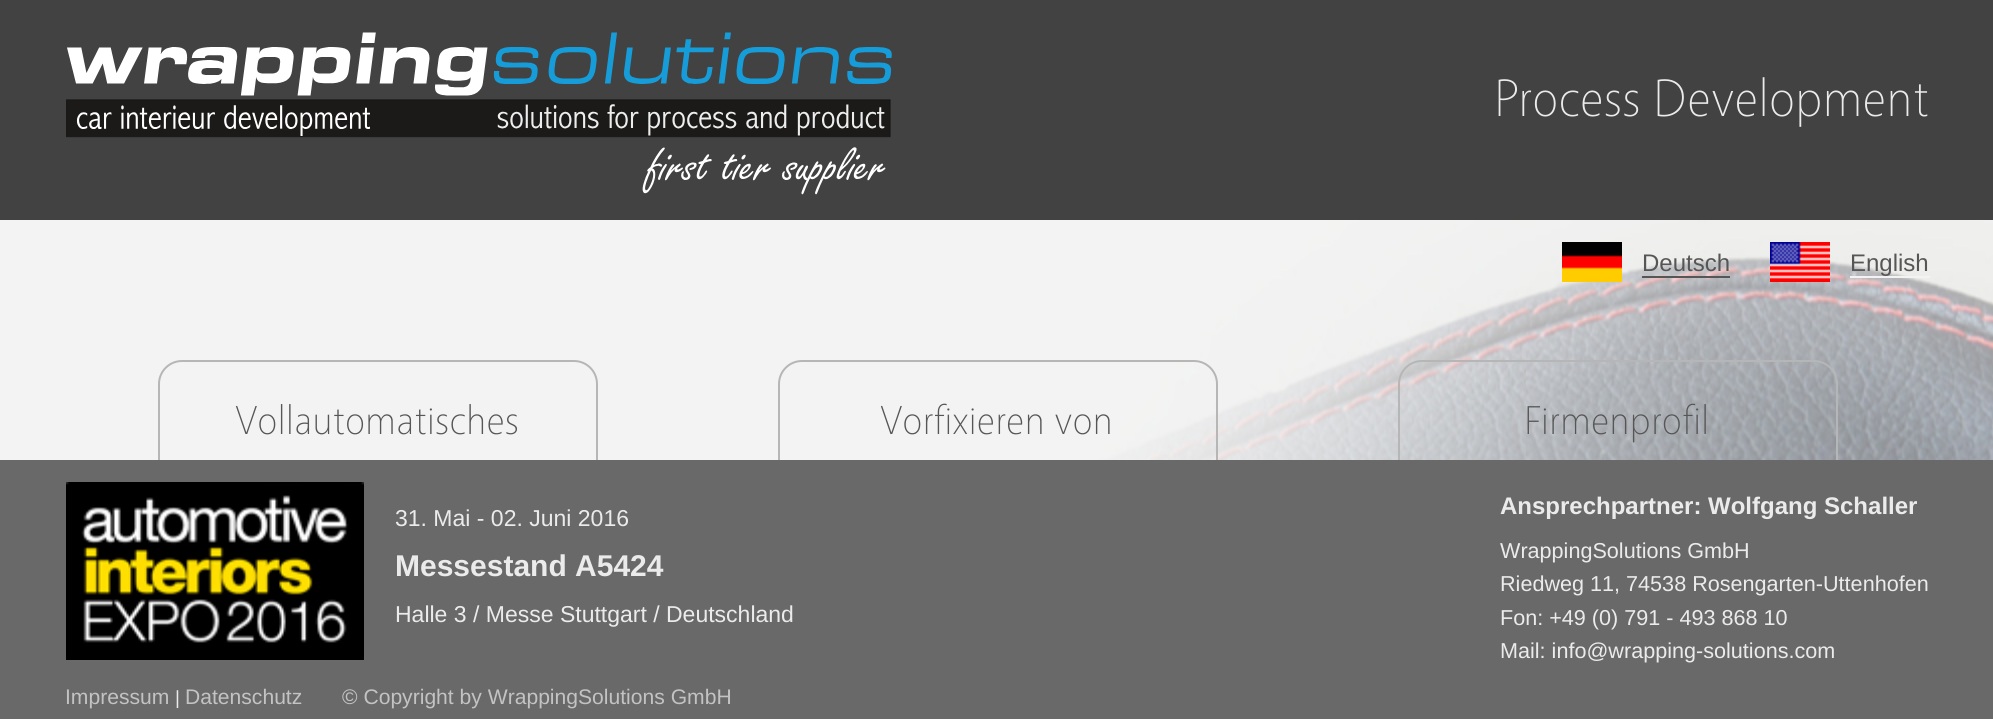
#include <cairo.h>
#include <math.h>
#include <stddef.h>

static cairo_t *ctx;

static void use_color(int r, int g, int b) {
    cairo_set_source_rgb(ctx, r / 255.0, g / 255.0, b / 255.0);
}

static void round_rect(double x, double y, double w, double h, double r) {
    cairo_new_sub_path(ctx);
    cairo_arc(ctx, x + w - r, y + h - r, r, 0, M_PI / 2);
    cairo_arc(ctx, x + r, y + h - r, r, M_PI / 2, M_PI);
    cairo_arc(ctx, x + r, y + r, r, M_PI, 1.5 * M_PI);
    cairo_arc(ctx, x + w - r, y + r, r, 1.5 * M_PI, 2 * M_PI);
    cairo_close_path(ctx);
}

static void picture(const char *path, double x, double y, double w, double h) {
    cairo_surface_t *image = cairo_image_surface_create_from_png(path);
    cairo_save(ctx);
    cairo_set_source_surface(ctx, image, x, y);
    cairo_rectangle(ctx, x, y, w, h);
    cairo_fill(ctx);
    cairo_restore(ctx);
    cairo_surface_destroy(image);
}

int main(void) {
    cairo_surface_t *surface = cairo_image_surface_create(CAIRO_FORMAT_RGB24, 1993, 719);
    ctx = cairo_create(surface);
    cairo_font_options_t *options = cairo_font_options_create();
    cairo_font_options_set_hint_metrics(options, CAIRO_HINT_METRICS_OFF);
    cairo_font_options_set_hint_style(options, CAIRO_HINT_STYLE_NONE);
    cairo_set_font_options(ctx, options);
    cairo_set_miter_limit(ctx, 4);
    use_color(243, 243, 243);
    cairo_paint(ctx);
    picture("img1.png", 879, 220, 1114, 240);
    use_color(66, 66, 66);
    cairo_rectangle(ctx, 0, 0, 1993, 220);
    cairo_fill(ctx);
    picture("img2.png", 66, 32, 826, 163);
    cairo_select_font_face(ctx, "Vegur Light", CAIRO_FONT_SLANT_NORMAL, CAIRO_FONT_WEIGHT_NORMAL);
    cairo_set_font_size(ctx, 52.75);
    use_color(235, 235, 235);
    cairo_move_to(ctx, 1494, 116);
    cairo_show_text(ctx, "Process Development");
    picture("img3.png", 1562, 242, 60, 40);
    use_color(86, 86, 86);
    cairo_rectangle(ctx, 1642, 276, 88, 2);
    cairo_fill(ctx);
    cairo_select_font_face(ctx, "Liberation Sans", CAIRO_FONT_SLANT_NORMAL, CAIRO_FONT_WEIGHT_NORMAL);
    cairo_set_font_size(ctx, 24);
    cairo_move_to(ctx, 1642, 271);
    cairo_show_text(ctx, "Deutsch");
    picture("img4.png", 1770, 242, 60, 40);
    use_color(243, 243, 243);
    cairo_rectangle(ctx, 1850, 276, 80, 2);
    cairo_fill(ctx);
    use_color(86, 86, 86);
    cairo_move_to(ctx, 1850, 271);
    cairo_show_text(ctx, "English");
    round_rect(159, 361, 438, 242, 23);
    use_color(182, 182, 182);
    cairo_stroke(ctx);
    cairo_select_font_face(ctx, "Vegur Light", CAIRO_FONT_SLANT_NORMAL, CAIRO_FONT_WEIGHT_NORMAL);
    cairo_set_font_size(ctx, 40.75);
    use_color(86, 86, 86);
    cairo_move_to(ctx, 235, 434);
    cairo_show_text(ctx, "Vollautomatisches");
    round_rect(779, 361, 438, 242, 23);
    use_color(182, 182, 182);
    cairo_stroke(ctx);
    use_color(86, 86, 86);
    cairo_move_to(ctx, 880, 434);
    cairo_show_text(ctx, "Vorfixieren von");
    round_rect(1399, 361, 438, 242, 23);
    use_color(182, 182, 182);
    cairo_stroke(ctx);
    use_color(86, 86, 86);
    cairo_move_to(ctx, 1524, 434);
    cairo_show_text(ctx, "Firmenprofil");
    use_color(105, 105, 105);
    cairo_rectangle(ctx, 0, 460, 1993, 259);
    cairo_fill(ctx);
    picture("img5.png", 66, 482, 298, 178);
    cairo_select_font_face(ctx, "Liberation Sans", CAIRO_FONT_SLANT_NORMAL, CAIRO_FONT_WEIGHT_NORMAL);
    cairo_set_font_size(ctx, 23);
    use_color(235, 235, 235);
    cairo_move_to(ctx, 395, 526);
    cairo_show_text(ctx, "31. Mai - 02. Juni 2016");
    cairo_select_font_face(ctx, "Liberation Sans", CAIRO_FONT_SLANT_NORMAL, CAIRO_FONT_WEIGHT_BOLD);
    cairo_set_font_size(ctx, 30);
    cairo_move_to(ctx, 395, 576);
    cairo_show_text(ctx, "Messestand A5424");
    cairo_select_font_face(ctx, "Liberation Sans", CAIRO_FONT_SLANT_NORMAL, CAIRO_FONT_WEIGHT_NORMAL);
    cairo_set_font_size(ctx, 23);
    cairo_move_to(ctx, 395, 622);
    cairo_show_text(ctx, "Halle 3 / Messe Stuttgart / Deutschland");
    cairo_set_font_size(ctx, 21.1);
    use_color(195, 195, 195);
    cairo_move_to(ctx, 65, 704);
    cairo_show_text(ctx, "Impressum");
    cairo_set_font_size(ctx, 19);
    use_color(235, 235, 235);
    cairo_move_to(ctx, 175, 704);
    cairo_show_text(ctx, "|");
    cairo_set_font_size(ctx, 21.1);
    use_color(195, 195, 195);
    cairo_move_to(ctx, 185, 704);
    cairo_show_text(ctx, "Datenschutz");
    cairo_move_to(ctx, 342, 704);
    cairo_show_text(ctx, "© Copyright by WrappingSolutions GmbH");
    cairo_select_font_face(ctx, "Liberation Sans", CAIRO_FONT_SLANT_NORMAL, CAIRO_FONT_WEIGHT_BOLD);
    cairo_set_font_size(ctx, 24);
    use_color(235, 235, 235);
    cairo_move_to(ctx, 1500, 514);
    cairo_show_text(ctx, "Ansprechpartner: Wolfgang Schaller");
    cairo_select_font_face(ctx, "Liberation Sans", CAIRO_FONT_SLANT_NORMAL, CAIRO_FONT_WEIGHT_NORMAL);
    cairo_set_font_size(ctx, 21.6);
    cairo_move_to(ctx, 1500, 558);
    cairo_show_text(ctx, "WrappingSolutions GmbH");
    cairo_move_to(ctx, 1500, 591);
    cairo_show_text(ctx, "Riedweg 11, 74538 Rosengarten-Uttenhofen");
    cairo_move_to(ctx, 1500, 625);
    cairo_show_text(ctx, "Fon: +49 (0) 791 - 493 868 10");
    cairo_move_to(ctx, 1500, 658);
    cairo_show_text(ctx, "Mail: info@wrapping-solutions.com");
    cairo_surface_write_to_png(surface, "result.png");
    cairo_font_options_destroy(options);
    cairo_destroy(ctx);
    cairo_surface_destroy(surface);
    return 0;
}
